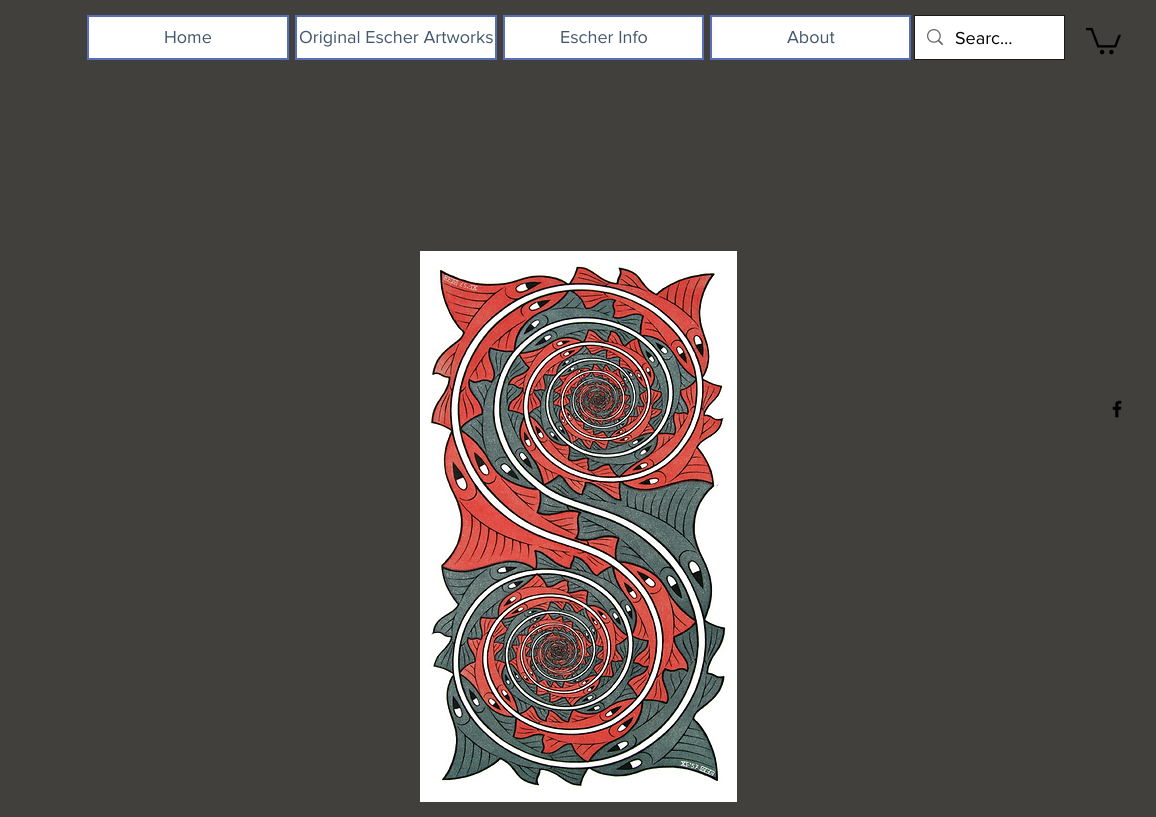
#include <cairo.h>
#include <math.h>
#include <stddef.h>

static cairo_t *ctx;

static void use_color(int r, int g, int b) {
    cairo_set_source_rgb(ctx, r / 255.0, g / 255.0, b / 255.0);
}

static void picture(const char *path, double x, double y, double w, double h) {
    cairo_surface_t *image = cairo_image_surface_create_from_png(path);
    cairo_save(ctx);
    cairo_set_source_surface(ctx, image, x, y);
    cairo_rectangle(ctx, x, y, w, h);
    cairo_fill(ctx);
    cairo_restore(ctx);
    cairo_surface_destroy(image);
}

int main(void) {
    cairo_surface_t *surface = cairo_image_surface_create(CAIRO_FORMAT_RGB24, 1156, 817);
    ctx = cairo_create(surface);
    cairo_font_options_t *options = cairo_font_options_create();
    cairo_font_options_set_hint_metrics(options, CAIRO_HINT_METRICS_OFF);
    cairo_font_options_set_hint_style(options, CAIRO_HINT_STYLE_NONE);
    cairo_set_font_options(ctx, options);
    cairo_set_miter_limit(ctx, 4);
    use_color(66, 64, 61);
    cairo_paint(ctx);
    use_color(255, 255, 255);
    cairo_rectangle(ctx, 88, 16, 200, 43);
    cairo_fill_preserve(ctx);
    use_color(86, 111, 184);
    cairo_stroke(ctx);
    cairo_select_font_face(ctx, "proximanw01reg", CAIRO_FONT_SLANT_NORMAL, CAIRO_FONT_WEIGHT_NORMAL);
    cairo_set_font_size(ctx, 18);
    use_color(67, 87, 109);
    cairo_move_to(ctx, 164, 43);
    cairo_show_text(ctx, "Home");
    use_color(255, 255, 255);
    cairo_rectangle(ctx, 296, 16, 200, 43);
    cairo_fill_preserve(ctx);
    use_color(86, 111, 184);
    cairo_stroke(ctx);
    use_color(67, 87, 109);
    cairo_move_to(ctx, 299, 43);
    cairo_show_text(ctx, "Original Escher Artworks");
    use_color(255, 255, 255);
    cairo_rectangle(ctx, 504, 16, 199, 43);
    cairo_fill_preserve(ctx);
    use_color(86, 111, 184);
    cairo_stroke(ctx);
    use_color(67, 87, 109);
    cairo_move_to(ctx, 560, 43);
    cairo_show_text(ctx, "Escher Info");
    use_color(255, 255, 255);
    cairo_rectangle(ctx, 711, 16, 199, 43);
    cairo_fill_preserve(ctx);
    use_color(86, 111, 184);
    cairo_stroke(ctx);
    use_color(67, 87, 109);
    cairo_move_to(ctx, 787, 43);
    cairo_show_text(ctx, "About");
    cairo_rectangle(ctx, 914.5, 15.5, 150, 44);
    use_color(26, 26, 24);
    cairo_set_line_width(ctx, 1);
    cairo_stroke(ctx);
    use_color(255, 255, 255);
    cairo_rectangle(ctx, 915, 16, 149, 43);
    cairo_fill(ctx);
    picture("img1.png", 927, 29, 16, 17);
    use_color(0, 0, 0);
    cairo_move_to(ctx, 955, 44);
    cairo_show_text(ctx, "Searc…");
    picture("img2.png", 1086, 27, 35, 28);
    picture("img3.png", 420, 251, 317, 551);
    picture("img4.png", 1112, 400, 10, 18);
    cairo_surface_write_to_png(surface, "result.png");
    cairo_font_options_destroy(options);
    cairo_destroy(ctx);
    cairo_surface_destroy(surface);
    return 0;
}
